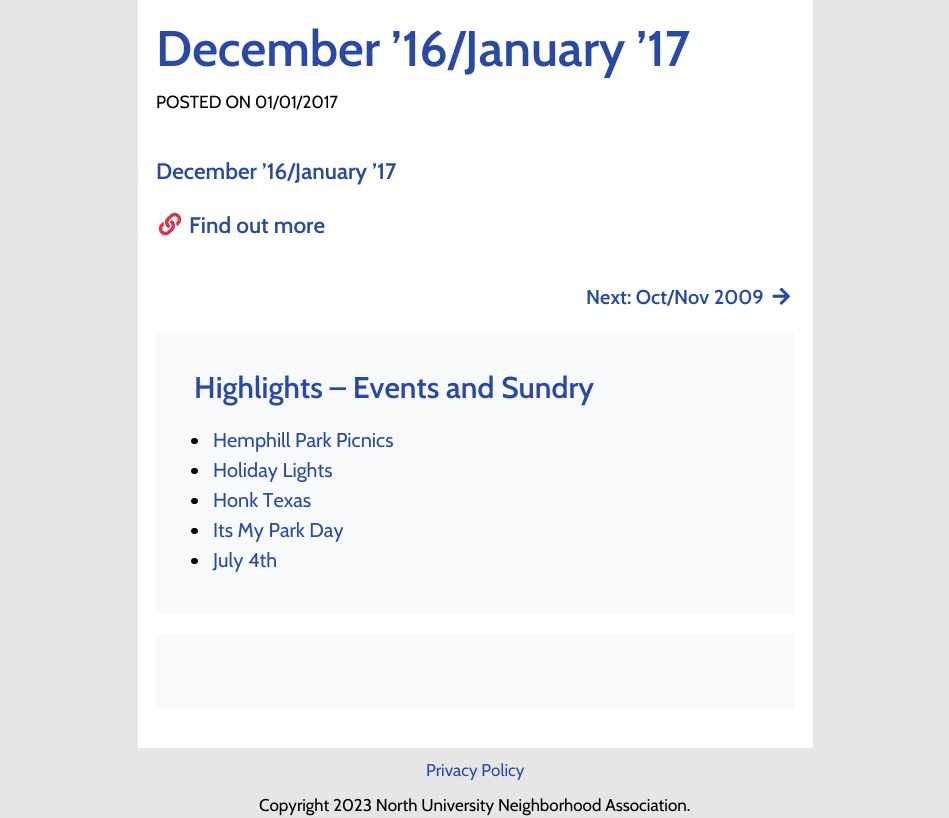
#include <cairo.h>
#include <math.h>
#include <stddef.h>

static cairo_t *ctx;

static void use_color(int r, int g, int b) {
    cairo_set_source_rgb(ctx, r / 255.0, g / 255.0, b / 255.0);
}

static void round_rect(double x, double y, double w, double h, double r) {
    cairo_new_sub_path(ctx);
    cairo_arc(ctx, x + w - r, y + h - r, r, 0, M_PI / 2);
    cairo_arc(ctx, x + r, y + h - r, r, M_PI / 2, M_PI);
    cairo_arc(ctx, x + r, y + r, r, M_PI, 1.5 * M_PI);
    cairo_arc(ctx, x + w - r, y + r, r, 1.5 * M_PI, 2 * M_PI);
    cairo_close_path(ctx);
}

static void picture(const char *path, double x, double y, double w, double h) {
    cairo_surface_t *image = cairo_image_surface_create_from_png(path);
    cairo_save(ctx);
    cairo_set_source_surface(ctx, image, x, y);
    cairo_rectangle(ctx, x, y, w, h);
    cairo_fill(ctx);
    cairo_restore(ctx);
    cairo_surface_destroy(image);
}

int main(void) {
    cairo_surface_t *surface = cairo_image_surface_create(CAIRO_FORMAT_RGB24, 949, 818);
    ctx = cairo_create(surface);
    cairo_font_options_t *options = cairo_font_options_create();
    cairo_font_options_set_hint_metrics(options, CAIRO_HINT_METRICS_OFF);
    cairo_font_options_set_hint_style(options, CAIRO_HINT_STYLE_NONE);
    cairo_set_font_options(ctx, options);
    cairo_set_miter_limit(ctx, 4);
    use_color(230, 230, 230);
    cairo_paint(ctx);
    use_color(255, 255, 255);
    cairo_rectangle(ctx, 138, 0, 675, 748);
    cairo_fill(ctx);
    cairo_select_font_face(ctx, "Cabin SemiBold", CAIRO_FONT_SLANT_NORMAL, CAIRO_FONT_WEIGHT_NORMAL);
    cairo_set_font_size(ctx, 50);
    use_color(41, 73, 166);
    cairo_move_to(ctx, 156, 66);
    cairo_show_text(ctx, "December ’16/January ’17");
    cairo_select_font_face(ctx, "Cabin", CAIRO_FONT_SLANT_NORMAL, CAIRO_FONT_WEIGHT_NORMAL);
    cairo_set_font_size(ctx, 17.5);
    use_color(0, 0, 0);
    cairo_move_to(ctx, 156, 108);
    cairo_show_text(ctx, "POSTED ON 01/01/2017");
    cairo_select_font_face(ctx, "Cabin SemiBold", CAIRO_FONT_SLANT_NORMAL, CAIRO_FONT_WEIGHT_NORMAL);
    cairo_set_font_size(ctx, 22.5);
    use_color(41, 73, 166);
    cairo_move_to(ctx, 156, 179);
    cairo_show_text(ctx, "December ’16/January ’17");
    picture("img1.png", 158, 212, 24, 24);
    cairo_move_to(ctx, 189, 233);
    cairo_show_text(ctx, "Find out more");
    cairo_set_font_size(ctx, 20);
    cairo_move_to(ctx, 586, 304);
    cairo_show_text(ctx, "Next: Oct/Nov 2009");
    picture("img2.png", 772, 287, 18, 18);
    use_color(248, 249, 250);
    cairo_rectangle(ctx, 156, 333, 638, 281);
    cairo_fill(ctx);
    cairo_set_font_size(ctx, 30);
    use_color(41, 73, 166);
    cairo_move_to(ctx, 194, 398);
    cairo_show_text(ctx, "Highlights – Events and Sundry");
    use_color(0, 0, 0);
    round_rect(191, 438, 7, 6, 3);
    cairo_fill(ctx);
    cairo_select_font_face(ctx, "Cabin", CAIRO_FONT_SLANT_NORMAL, CAIRO_FONT_WEIGHT_NORMAL);
    cairo_set_font_size(ctx, 20);
    use_color(41, 73, 166);
    cairo_move_to(ctx, 213, 447);
    cairo_show_text(ctx, "Hemphill Park Picnics");
    use_color(0, 0, 0);
    round_rect(191, 468, 7, 6, 3);
    cairo_fill(ctx);
    use_color(41, 73, 166);
    cairo_move_to(ctx, 213, 477);
    cairo_show_text(ctx, "Holiday Lights");
    use_color(0, 0, 0);
    round_rect(191, 498, 7, 6, 3);
    cairo_fill(ctx);
    use_color(41, 73, 166);
    cairo_move_to(ctx, 213, 507);
    cairo_show_text(ctx, "Honk Texas");
    use_color(0, 0, 0);
    round_rect(191, 528, 7, 6, 3);
    cairo_fill(ctx);
    use_color(41, 73, 166);
    cairo_move_to(ctx, 213, 537);
    cairo_show_text(ctx, "Its My Park Day");
    use_color(0, 0, 0);
    round_rect(191, 558, 7, 6, 3);
    cairo_fill(ctx);
    use_color(41, 73, 166);
    cairo_move_to(ctx, 213, 567);
    cairo_show_text(ctx, "July 4th");
    use_color(248, 249, 250);
    cairo_rectangle(ctx, 156, 634, 638, 75);
    cairo_fill(ctx);
    cairo_set_font_size(ctx, 17);
    use_color(41, 73, 166);
    cairo_move_to(ctx, 426, 776);
    cairo_show_text(ctx, "Privacy Policy");
    use_color(0, 0, 0);
    cairo_move_to(ctx, 259, 811);
    cairo_show_text(ctx, "Copyright 2023 North University Neighborhood Association.");
    cairo_surface_write_to_png(surface, "result.png");
    cairo_font_options_destroy(options);
    cairo_destroy(ctx);
    cairo_surface_destroy(surface);
    return 0;
}
